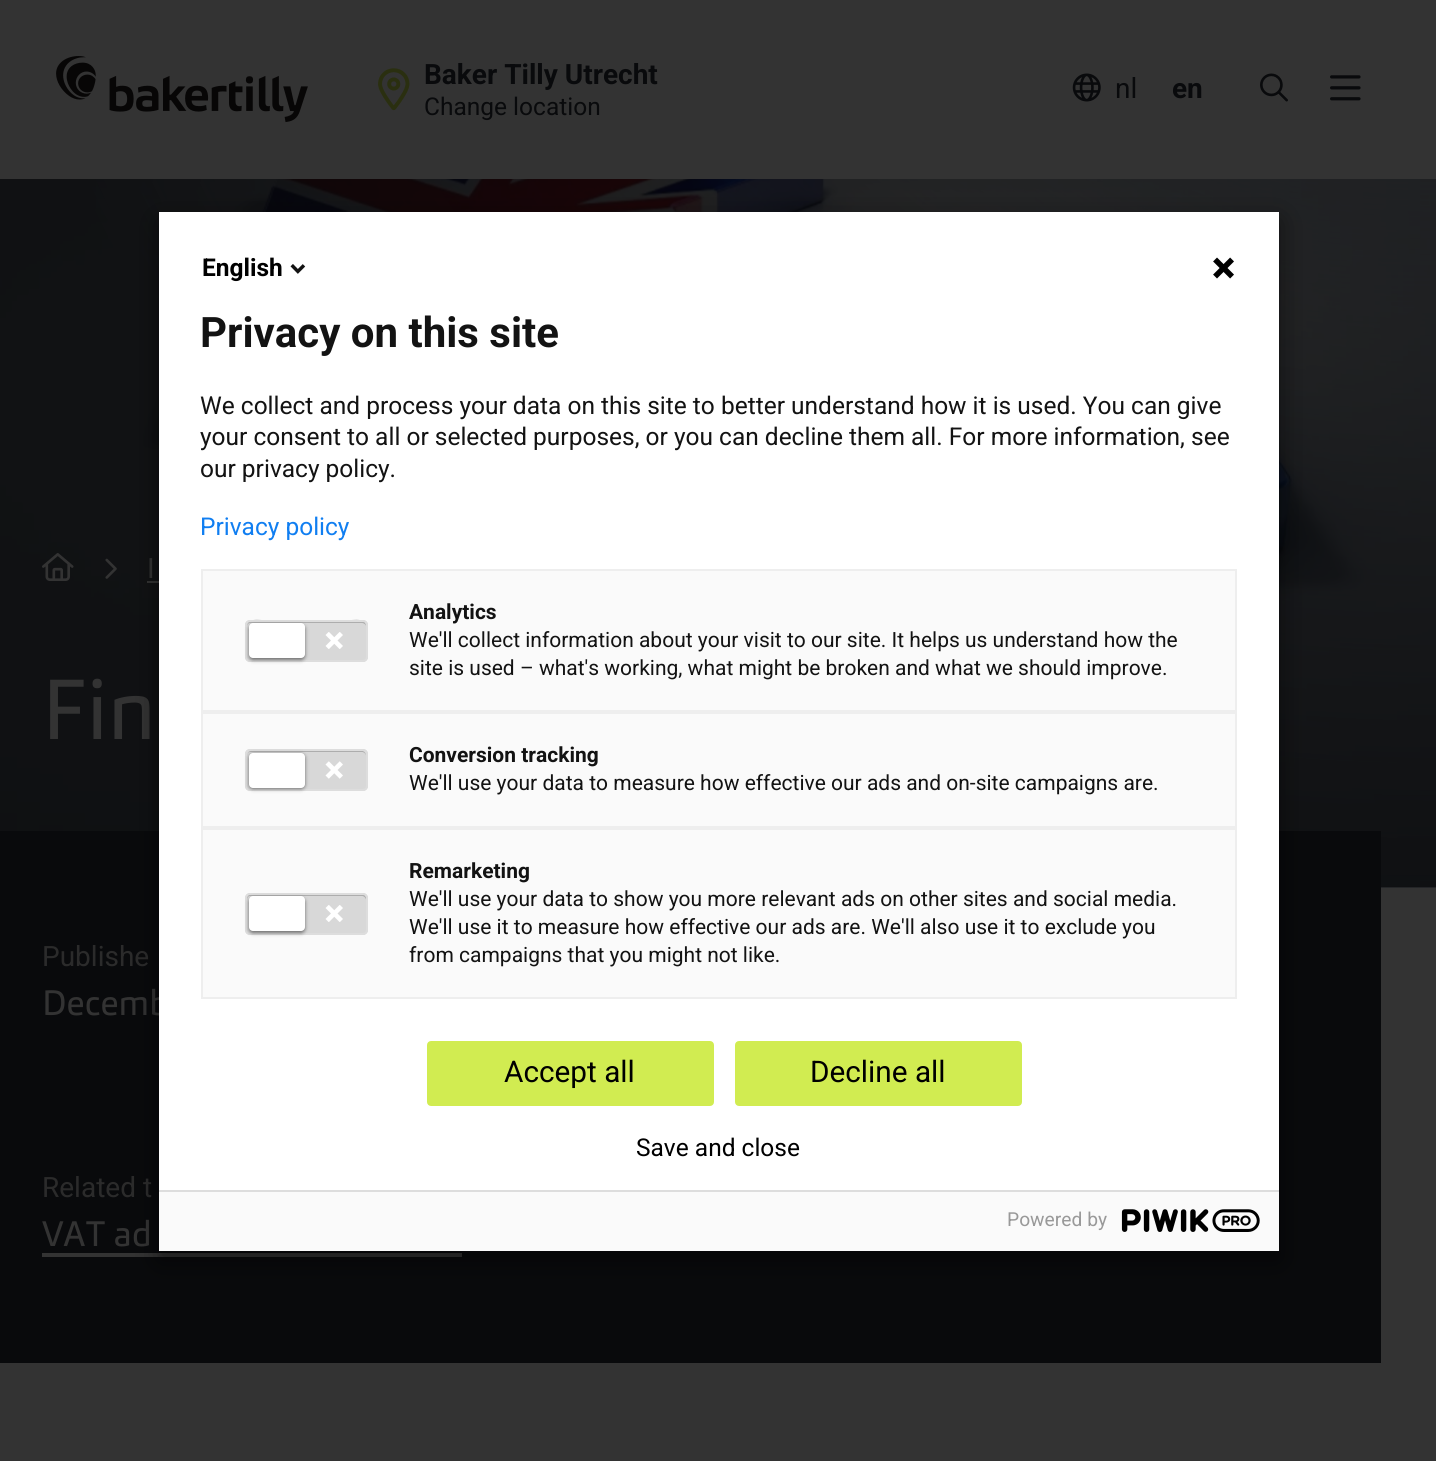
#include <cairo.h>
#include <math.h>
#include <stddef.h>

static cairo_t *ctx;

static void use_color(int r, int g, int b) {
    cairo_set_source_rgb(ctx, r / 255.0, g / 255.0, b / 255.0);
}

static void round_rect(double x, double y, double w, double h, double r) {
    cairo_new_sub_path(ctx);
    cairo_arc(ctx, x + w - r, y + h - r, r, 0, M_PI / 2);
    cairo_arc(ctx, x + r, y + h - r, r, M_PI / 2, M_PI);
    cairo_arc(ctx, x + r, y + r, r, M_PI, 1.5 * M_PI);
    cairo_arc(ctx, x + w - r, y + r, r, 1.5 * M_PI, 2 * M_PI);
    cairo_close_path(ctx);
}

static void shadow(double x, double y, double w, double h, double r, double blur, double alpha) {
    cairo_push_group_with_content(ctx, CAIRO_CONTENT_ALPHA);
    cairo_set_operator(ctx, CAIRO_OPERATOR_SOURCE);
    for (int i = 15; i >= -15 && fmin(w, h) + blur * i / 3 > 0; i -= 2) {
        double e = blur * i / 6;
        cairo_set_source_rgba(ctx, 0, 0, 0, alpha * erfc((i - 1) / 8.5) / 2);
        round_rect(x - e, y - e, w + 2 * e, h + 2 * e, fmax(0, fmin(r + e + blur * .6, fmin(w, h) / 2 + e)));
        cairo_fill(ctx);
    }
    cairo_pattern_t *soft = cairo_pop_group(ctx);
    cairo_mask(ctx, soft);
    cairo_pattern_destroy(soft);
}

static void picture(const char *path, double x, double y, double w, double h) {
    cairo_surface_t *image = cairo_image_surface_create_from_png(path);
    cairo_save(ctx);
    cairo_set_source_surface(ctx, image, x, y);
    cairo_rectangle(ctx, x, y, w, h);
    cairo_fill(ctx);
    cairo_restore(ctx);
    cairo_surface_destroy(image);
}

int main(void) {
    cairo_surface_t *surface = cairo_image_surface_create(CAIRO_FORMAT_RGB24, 1436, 1461);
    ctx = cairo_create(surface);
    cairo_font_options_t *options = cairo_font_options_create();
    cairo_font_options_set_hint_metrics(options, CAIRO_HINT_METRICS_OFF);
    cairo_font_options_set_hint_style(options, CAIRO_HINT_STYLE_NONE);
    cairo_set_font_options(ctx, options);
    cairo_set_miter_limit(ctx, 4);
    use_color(51, 51, 51);
    cairo_paint(ctx);
    picture("img1.png", 56, 56, 252, 67);
    picture("img2.png", 378, 68, 32, 43);
    cairo_select_font_face(ctx, "Roboto", CAIRO_FONT_SLANT_NORMAL, CAIRO_FONT_WEIGHT_BOLD);
    cairo_set_font_size(ctx, 28);
    use_color(9, 10, 12);
    cairo_move_to(ctx, 424, 84);
    cairo_show_text(ctx, "Baker Tilly Utrecht");
    cairo_select_font_face(ctx, "Roboto", CAIRO_FONT_SLANT_NORMAL, CAIRO_FONT_WEIGHT_NORMAL);
    cairo_set_font_size(ctx, 24.5);
    cairo_move_to(ctx, 424, 115);
    cairo_show_text(ctx, "Change location");
    picture("img3.png", 1072, 73, 29, 29);
    cairo_set_font_size(ctx, 28);
    cairo_move_to(ctx, 1115, 98);
    cairo_show_text(ctx, "nl");
    cairo_select_font_face(ctx, "Roboto", CAIRO_FONT_SLANT_NORMAL, CAIRO_FONT_WEIGHT_BOLD);
    cairo_move_to(ctx, 1172, 98);
    cairo_show_text(ctx, "en");
    picture("img4.png", 1260, 73, 28, 29);
    picture("img5.png", 1330, 75, 31, 26);
    picture("img6.png", 0, 179, 1436, 709);
    picture("img7.png", 42, 553, 32, 28);
    picture("img8.png", 105, 558, 12, 21);
    cairo_select_font_face(ctx, "Roboto", CAIRO_FONT_SLANT_NORMAL, CAIRO_FONT_WEIGHT_NORMAL);
    use_color(51, 51, 51);
    cairo_move_to(ctx, 147, 578);
    cairo_show_text(ctx, "I");
    cairo_rectangle(ctx, 147, 581, 12, 2);
    cairo_fill(ctx);
    cairo_select_font_face(ctx, "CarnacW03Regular", CAIRO_FONT_SLANT_NORMAL, CAIRO_FONT_WEIGHT_NORMAL);
    cairo_set_font_size(ctx, 84);
    cairo_move_to(ctx, 42, 739);
    cairo_show_text(ctx, "Fin");
    use_color(9, 10, 12);
    cairo_rectangle(ctx, 0, 831, 1381, 532);
    cairo_fill(ctx);
    cairo_select_font_face(ctx, "Roboto", CAIRO_FONT_SLANT_NORMAL, CAIRO_FONT_WEIGHT_NORMAL);
    cairo_set_font_size(ctx, 28);
    use_color(43, 43, 43);
    cairo_move_to(ctx, 42, 966);
    cairo_show_text(ctx, "Publishe");
    cairo_select_font_face(ctx, "CarnacW03Regular", CAIRO_FONT_SLANT_NORMAL, CAIRO_FONT_WEIGHT_NORMAL);
    cairo_set_font_size(ctx, 35);
    use_color(51, 51, 51);
    cairo_move_to(ctx, 42, 1015);
    cairo_show_text(ctx, "Decemb");
    cairo_select_font_face(ctx, "Roboto", CAIRO_FONT_SLANT_NORMAL, CAIRO_FONT_WEIGHT_NORMAL);
    cairo_set_font_size(ctx, 28);
    use_color(43, 43, 43);
    cairo_move_to(ctx, 42, 1197);
    cairo_show_text(ctx, "Related t");
    cairo_select_font_face(ctx, "CarnacW03Regular", CAIRO_FONT_SLANT_NORMAL, CAIRO_FONT_WEIGHT_NORMAL);
    cairo_set_font_size(ctx, 35);
    use_color(51, 51, 51);
    cairo_move_to(ctx, 42, 1246);
    cairo_show_text(ctx, "VAT ad");
    cairo_rectangle(ctx, 42, 1253, 420, 4);
    cairo_fill(ctx);
    use_color(0, 0, 0);
    shadow(159, 221, 1120, 1039, 0, 13, 0.5);
    use_color(255, 255, 255);
    cairo_rectangle(ctx, 159, 212, 1120, 978);
    cairo_fill(ctx);
    cairo_select_font_face(ctx, "Roboto", CAIRO_FONT_SLANT_NORMAL, CAIRO_FONT_WEIGHT_BOLD);
    cairo_set_font_size(ctx, 24.5);
    use_color(0, 0, 0);
    cairo_move_to(ctx, 202, 276);
    cairo_show_text(ctx, "English");
    picture("img9.png", 290, 264, 16, 10);
    picture("img10.png", 1213, 257, 21, 22);
    cairo_set_font_size(ctx, 42);
    use_color(19, 19, 19);
    cairo_move_to(ctx, 200, 347);
    cairo_show_text(ctx, "Privacy on this site");
    cairo_select_font_face(ctx, "Roboto", CAIRO_FONT_SLANT_NORMAL, CAIRO_FONT_WEIGHT_NORMAL);
    cairo_set_font_size(ctx, 24.5);
    cairo_move_to(ctx, 200, 414);
    cairo_show_text(ctx, "We collect and process your data on this site to better understand how it is used. You can give");
    cairo_move_to(ctx, 200, 445);
    cairo_show_text(ctx, "your consent to all or selected purposes, or you can decline them all. For more information, see");
    cairo_move_to(ctx, 200, 477);
    cairo_show_text(ctx, "our privacy policy.");
    use_color(16, 126, 241);
    cairo_move_to(ctx, 200, 535);
    cairo_show_text(ctx, "Privacy policy");
    use_color(250, 250, 250);
    cairo_rectangle(ctx, 202, 570, 1034, 141);
    cairo_fill_preserve(ctx);
    use_color(238, 238, 238);
    cairo_stroke(ctx);
    use_color(216, 216, 216);
    round_rect(245, 620, 123, 42, 5);
    cairo_fill(ctx);
    use_color(173, 173, 173);
    cairo_new_path(ctx);
    cairo_move_to(ctx, 250, 623);
    cairo_line_to(ctx, 362, 623);
    cairo_curve_to(ctx, 364, 623, 366, 625, 366, 626);
    cairo_curve_to(ctx, 366, 616, 347, 621, 344, 621);
    cairo_line_to(ctx, 270, 621);
    cairo_curve_to(ctx, 266, 621, 247, 616, 247, 626);
    cairo_curve_to(ctx, 247, 625, 248, 623, 250, 623);
    cairo_close_path(ctx);
    cairo_fill(ctx);
    round_rect(246, 621, 121, 40, 4);
    use_color(221, 221, 221);
    cairo_stroke(ctx);
    use_color(0, 0, 0);
    shadow(249, 625, 56, 35, 4, 2, 0.5);
    use_color(255, 255, 255);
    round_rect(249, 623, 56, 35, 4);
    cairo_fill(ctx);
    picture("img11.png", 325, 632, 18, 17);
    cairo_select_font_face(ctx, "Roboto", CAIRO_FONT_SLANT_NORMAL, CAIRO_FONT_WEIGHT_BOLD);
    cairo_set_font_size(ctx, 21);
    use_color(19, 19, 19);
    cairo_move_to(ctx, 409, 619);
    cairo_show_text(ctx, "Analytics");
    cairo_select_font_face(ctx, "Roboto", CAIRO_FONT_SLANT_NORMAL, CAIRO_FONT_WEIGHT_NORMAL);
    cairo_move_to(ctx, 409, 647);
    cairo_show_text(ctx, "We'll collect information about your visit to our site. It helps us understand how the");
    cairo_move_to(ctx, 409, 675);
    cairo_show_text(ctx, "site is used – what's working, what might be broken and what we should improve.");
    use_color(250, 250, 250);
    cairo_rectangle(ctx, 202, 713, 1034, 114);
    cairo_fill_preserve(ctx);
    use_color(238, 238, 238);
    cairo_stroke(ctx);
    use_color(216, 216, 216);
    round_rect(245, 749, 123, 42, 5);
    cairo_fill(ctx);
    use_color(173, 173, 173);
    cairo_new_path(ctx);
    cairo_move_to(ctx, 250, 752);
    cairo_line_to(ctx, 362, 752);
    cairo_curve_to(ctx, 364, 752, 366, 754, 366, 756);
    cairo_curve_to(ctx, 366, 746, 347, 751, 344, 751);
    cairo_line_to(ctx, 270, 751);
    cairo_curve_to(ctx, 266, 751, 247, 746, 247, 756);
    cairo_curve_to(ctx, 247, 754, 248, 752, 250, 752);
    cairo_close_path(ctx);
    cairo_fill(ctx);
    round_rect(246, 750, 121, 40, 4);
    use_color(221, 221, 221);
    cairo_stroke(ctx);
    use_color(0, 0, 0);
    shadow(249, 754, 56, 35, 4, 2, 0.5);
    use_color(255, 255, 255);
    round_rect(249, 753, 56, 35, 4);
    cairo_fill(ctx);
    picture("img12.png", 325, 761, 18, 18);
    cairo_select_font_face(ctx, "Roboto", CAIRO_FONT_SLANT_NORMAL, CAIRO_FONT_WEIGHT_BOLD);
    use_color(19, 19, 19);
    cairo_move_to(ctx, 409, 762);
    cairo_show_text(ctx, "Conversion tracking");
    cairo_select_font_face(ctx, "Roboto", CAIRO_FONT_SLANT_NORMAL, CAIRO_FONT_WEIGHT_NORMAL);
    cairo_move_to(ctx, 409, 790);
    cairo_show_text(ctx, "We'll use your data to measure how effective our ads and on-site campaigns are.");
    use_color(250, 250, 250);
    cairo_rectangle(ctx, 202, 829, 1034, 169);
    cairo_fill_preserve(ctx);
    use_color(238, 238, 238);
    cairo_stroke(ctx);
    use_color(216, 216, 216);
    round_rect(245, 893, 123, 42, 5);
    cairo_fill(ctx);
    use_color(173, 173, 173);
    cairo_new_path(ctx);
    cairo_move_to(ctx, 250, 896);
    cairo_line_to(ctx, 362, 896);
    cairo_curve_to(ctx, 364, 896, 366, 898, 366, 900);
    cairo_line_to(ctx, 366, 898);
    cairo_curve_to(ctx, 366, 896, 364, 894, 362, 894);
    cairo_line_to(ctx, 251, 894);
    cairo_curve_to(ctx, 249, 894, 247, 896, 247, 898);
    cairo_line_to(ctx, 247, 900);
    cairo_curve_to(ctx, 247, 898, 248, 896, 250, 896);
    cairo_close_path(ctx);
    cairo_fill(ctx);
    round_rect(246, 894, 121, 40, 4);
    use_color(221, 221, 221);
    cairo_stroke(ctx);
    use_color(0, 0, 0);
    shadow(249, 898, 56, 35, 4, 2, 0.5);
    use_color(255, 255, 255);
    round_rect(249, 896, 56, 35, 4);
    cairo_fill(ctx);
    picture("img11.png", 325, 905, 18, 17);
    cairo_select_font_face(ctx, "Roboto", CAIRO_FONT_SLANT_NORMAL, CAIRO_FONT_WEIGHT_BOLD);
    use_color(19, 19, 19);
    cairo_move_to(ctx, 409, 878);
    cairo_show_text(ctx, "Remarketing");
    cairo_select_font_face(ctx, "Roboto", CAIRO_FONT_SLANT_NORMAL, CAIRO_FONT_WEIGHT_NORMAL);
    cairo_move_to(ctx, 409, 906);
    cairo_show_text(ctx, "We'll use your data to show you more relevant ads on other sites and social media.");
    cairo_move_to(ctx, 409, 934);
    cairo_show_text(ctx, "We'll use it to measure how effective our ads are. We'll also use it to exclude you");
    cairo_move_to(ctx, 409, 962);
    cairo_show_text(ctx, "from campaigns that you might not like.");
    use_color(209, 236, 81);
    round_rect(428, 1042, 285, 63, 3);
    cairo_fill_preserve(ctx);
    cairo_stroke(ctx);
    cairo_set_font_size(ctx, 29.75);
    use_color(0, 0, 0);
    cairo_move_to(ctx, 504, 1082);
    cairo_show_text(ctx, "Accept all");
    use_color(209, 236, 81);
    round_rect(736, 1042, 285, 63, 3);
    cairo_fill_preserve(ctx);
    cairo_stroke(ctx);
    use_color(0, 0, 0);
    cairo_move_to(ctx, 810, 1082);
    cairo_show_text(ctx, "Decline all");
    cairo_set_font_size(ctx, 24.5);
    cairo_move_to(ctx, 636, 1156);
    cairo_show_text(ctx, "Save and close");
    use_color(250, 250, 250);
    cairo_rectangle(ctx, 159, 1192, 1120, 59);
    cairo_fill(ctx);
    use_color(221, 221, 221);
    cairo_rectangle(ctx, 159, 1190, 1120, 2);
    cairo_fill(ctx);
    cairo_set_font_size(ctx, 19.25);
    use_color(153, 153, 153);
    cairo_move_to(ctx, 1007, 1226);
    cairo_show_text(ctx, "Powered by");
    picture("img13.png", 1121, 1209, 139, 23);
    cairo_surface_write_to_png(surface, "result.png");
    cairo_font_options_destroy(options);
    cairo_destroy(ctx);
    cairo_surface_destroy(surface);
    return 0;
}
